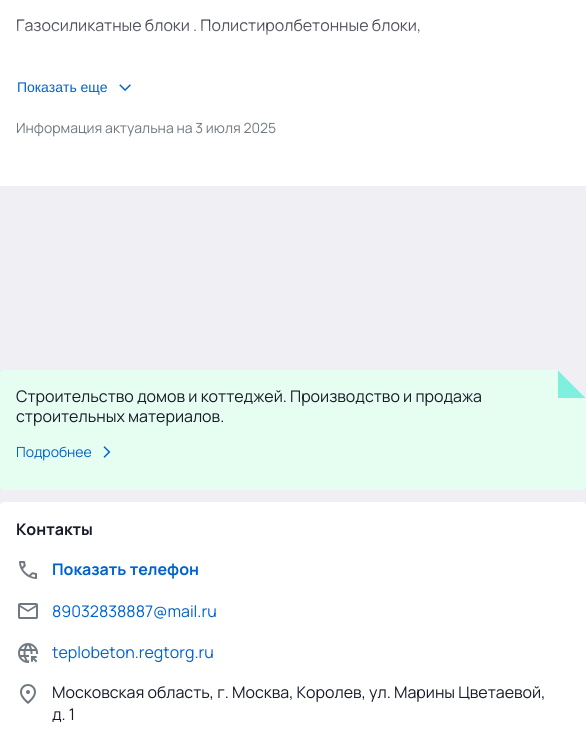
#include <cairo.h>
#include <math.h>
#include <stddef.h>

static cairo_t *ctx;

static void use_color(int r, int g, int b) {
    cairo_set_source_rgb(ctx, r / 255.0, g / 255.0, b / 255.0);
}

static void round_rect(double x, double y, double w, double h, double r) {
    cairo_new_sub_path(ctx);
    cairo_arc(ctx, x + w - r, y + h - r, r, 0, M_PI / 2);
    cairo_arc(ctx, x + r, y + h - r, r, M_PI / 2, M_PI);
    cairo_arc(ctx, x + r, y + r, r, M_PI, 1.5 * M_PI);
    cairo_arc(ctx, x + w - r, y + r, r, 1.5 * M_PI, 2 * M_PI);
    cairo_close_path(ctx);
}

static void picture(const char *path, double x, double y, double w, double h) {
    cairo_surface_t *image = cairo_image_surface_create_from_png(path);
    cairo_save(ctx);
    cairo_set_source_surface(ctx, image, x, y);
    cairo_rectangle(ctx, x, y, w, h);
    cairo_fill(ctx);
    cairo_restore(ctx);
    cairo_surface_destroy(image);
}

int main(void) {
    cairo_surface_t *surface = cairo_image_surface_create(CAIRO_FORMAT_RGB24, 586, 747);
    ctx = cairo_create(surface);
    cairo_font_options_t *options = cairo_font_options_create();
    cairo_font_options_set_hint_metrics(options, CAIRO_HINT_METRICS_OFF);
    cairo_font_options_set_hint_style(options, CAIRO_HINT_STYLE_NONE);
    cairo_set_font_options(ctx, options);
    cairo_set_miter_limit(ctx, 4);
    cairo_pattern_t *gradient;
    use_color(239, 239, 244);
    cairo_paint(ctx);
    use_color(255, 255, 255);
    cairo_rectangle(ctx, 0, 0, 586, 186);
    cairo_fill(ctx);
    cairo_select_font_face(ctx, "Manrope", CAIRO_FONT_SLANT_NORMAL, CAIRO_FONT_WEIGHT_NORMAL);
    cairo_set_font_size(ctx, 16);
    use_color(24, 27, 41);
    cairo_move_to(ctx, 16, 31);
    cairo_show_text(ctx, "Газосиликатные блоки . Полистиролбетонные блоки,");
    gradient = cairo_pattern_create_linear(293, 64, 293, 14);
    cairo_pattern_add_color_stop_rgba(gradient, 0, 1, 1, 1, 1);
    cairo_pattern_add_color_stop_rgba(gradient, 1, 1, 1, 1, 0);
    cairo_set_source(ctx, gradient);
    cairo_pattern_destroy(gradient);
    cairo_rectangle(ctx, 17, 19, 403, 16);
    cairo_fill(ctx);
    cairo_select_font_face(ctx, "Liberation Sans", CAIRO_FONT_SLANT_NORMAL, CAIRO_FONT_WEIGHT_NORMAL);
    cairo_set_font_size(ctx, 14);
    use_color(0, 99, 204);
    cairo_move_to(ctx, 17, 92);
    cairo_show_text(ctx, "Показать еще");
    picture("img1.png", 119, 84, 12, 7);
    cairo_select_font_face(ctx, "Manrope", CAIRO_FONT_SLANT_NORMAL, CAIRO_FONT_WEIGHT_NORMAL);
    use_color(113, 121, 128);
    cairo_move_to(ctx, 16, 133);
    cairo_show_text(ctx, "Информация актуальна на 3 июля 2025");
    use_color(230, 254, 241);
    round_rect(0, 370, 586, 120, 4);
    cairo_fill(ctx);
    use_color(239, 239, 244);
    cairo_rectangle(ctx, 558, 370, 28, 28);
    cairo_fill(ctx);
    use_color(127, 240, 222);
    cairo_new_path(ctx);
    cairo_move_to(ctx, 558, 370.5);
    cairo_line_to(ctx, 558, 398);
    cairo_line_to(ctx, 585.5, 398);
    cairo_close_path(ctx);
    cairo_fill(ctx);
    cairo_set_font_size(ctx, 16);
    use_color(24, 27, 41);
    cairo_move_to(ctx, 16, 402);
    cairo_show_text(ctx, "Строительство домов и коттеджей. Производство и продажа");
    cairo_move_to(ctx, 16, 422);
    cairo_show_text(ctx, "строительных материалов.");
    cairo_set_font_size(ctx, 14);
    use_color(0, 99, 204);
    cairo_move_to(ctx, 16, 457);
    cairo_show_text(ctx, "Подробнее");
    picture("img2.png", 103, 446, 8, 12);
    use_color(255, 255, 255);
    round_rect(0, 502, 586, 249, 4);
    cairo_fill(ctx);
    cairo_select_font_face(ctx, "Manrope", CAIRO_FONT_SLANT_NORMAL, CAIRO_FONT_WEIGHT_BOLD);
    cairo_set_font_size(ctx, 16);
    use_color(24, 27, 41);
    cairo_move_to(ctx, 16, 535);
    cairo_show_text(ctx, "Контакты");
    picture("img3.png", 19, 561, 18, 18);
    use_color(0, 99, 204);
    cairo_move_to(ctx, 52, 575);
    cairo_show_text(ctx, "Показать телефон");
    picture("img4.png", 18, 603, 20, 16);
    cairo_select_font_face(ctx, "Manrope", CAIRO_FONT_SLANT_NORMAL, CAIRO_FONT_WEIGHT_NORMAL);
    cairo_move_to(ctx, 52, 617);
    cairo_show_text(ctx, "89032838887@mail.ru");
    picture("img5.png", 18, 643, 20, 20);
    cairo_move_to(ctx, 52, 658);
    cairo_show_text(ctx, "teplobeton.regtorg.ru");
    picture("img6.png", 20, 684, 16, 20);
    use_color(24, 27, 41);
    cairo_move_to(ctx, 52, 698);
    cairo_show_text(ctx, "Московская область, г. Москва, Королев, ул. Марины Цветаевой,");
    cairo_move_to(ctx, 52, 720);
    cairo_show_text(ctx, "д. 1");
    cairo_surface_write_to_png(surface, "result.png");
    cairo_font_options_destroy(options);
    cairo_destroy(ctx);
    cairo_surface_destroy(surface);
    return 0;
}
